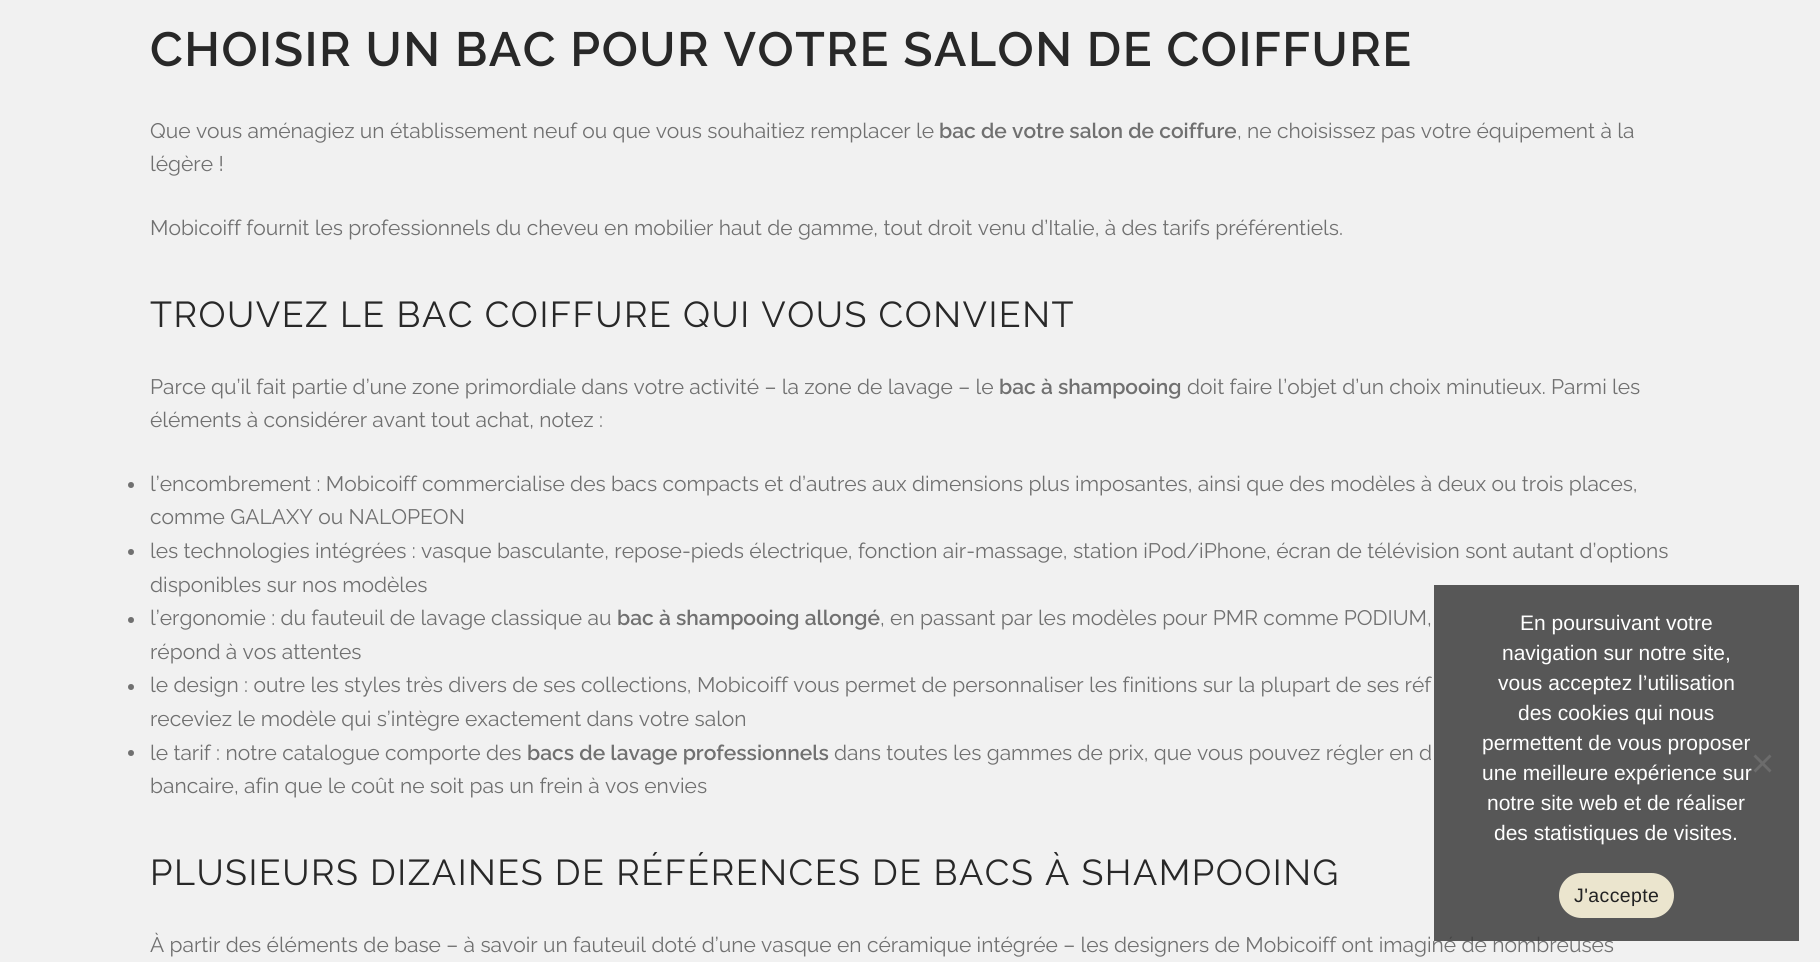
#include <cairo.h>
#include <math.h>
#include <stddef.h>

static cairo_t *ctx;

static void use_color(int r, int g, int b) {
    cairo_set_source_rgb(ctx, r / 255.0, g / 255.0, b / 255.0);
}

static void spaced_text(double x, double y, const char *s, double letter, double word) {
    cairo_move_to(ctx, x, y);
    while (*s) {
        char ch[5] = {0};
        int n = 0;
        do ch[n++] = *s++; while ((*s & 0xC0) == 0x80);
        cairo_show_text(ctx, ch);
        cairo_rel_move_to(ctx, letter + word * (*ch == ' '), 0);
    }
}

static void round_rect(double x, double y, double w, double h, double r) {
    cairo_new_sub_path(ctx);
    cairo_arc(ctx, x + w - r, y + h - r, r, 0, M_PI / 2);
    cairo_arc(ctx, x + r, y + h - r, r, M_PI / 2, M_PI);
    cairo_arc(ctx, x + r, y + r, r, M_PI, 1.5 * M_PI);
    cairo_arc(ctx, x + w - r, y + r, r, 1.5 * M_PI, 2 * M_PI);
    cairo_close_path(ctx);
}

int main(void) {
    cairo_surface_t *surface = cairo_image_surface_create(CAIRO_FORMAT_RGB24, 1820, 962);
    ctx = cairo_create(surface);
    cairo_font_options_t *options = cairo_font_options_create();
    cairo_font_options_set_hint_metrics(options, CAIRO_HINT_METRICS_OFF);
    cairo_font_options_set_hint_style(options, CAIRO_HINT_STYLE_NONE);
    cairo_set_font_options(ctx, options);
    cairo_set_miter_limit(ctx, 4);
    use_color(241, 241, 241);
    cairo_paint(ctx);
    cairo_select_font_face(ctx, "Raleway SemiBold", CAIRO_FONT_SLANT_NORMAL, CAIRO_FONT_WEIGHT_NORMAL);
    cairo_set_font_size(ctx, 48);
    use_color(40, 40, 40);
    spaced_text(150, 66, "CHOISIR UN BAC POUR VOTRE SALON DE COIFFURE", 1.5, 0);
    cairo_select_font_face(ctx, "Raleway", CAIRO_FONT_SLANT_NORMAL, CAIRO_FONT_WEIGHT_NORMAL);
    cairo_set_font_size(ctx, 21);
    use_color(112, 112, 112);
    cairo_move_to(ctx, 150, 138);
    cairo_show_text(ctx, "Que vous aménagiez un établissement neuf ou que vous souhaitiez remplacer le");
    cairo_select_font_face(ctx, "Raleway SemiBold", CAIRO_FONT_SLANT_NORMAL, CAIRO_FONT_WEIGHT_NORMAL);
    cairo_move_to(ctx, 939, 138);
    cairo_show_text(ctx, "bac de votre salon de coiffure");
    cairo_select_font_face(ctx, "Raleway", CAIRO_FONT_SLANT_NORMAL, CAIRO_FONT_WEIGHT_NORMAL);
    cairo_move_to(ctx, 1237, 138);
    cairo_show_text(ctx, ", ne choisissez pas votre équipement à la");
    cairo_move_to(ctx, 150, 171);
    cairo_show_text(ctx, "légère !");
    cairo_move_to(ctx, 150, 235);
    cairo_show_text(ctx, "Mobicoiff fournit les professionnels du cheveu en mobilier haut de gamme, tout droit venu d’Italie, à des tarifs préférentiels.");
    cairo_set_font_size(ctx, 36);
    use_color(40, 40, 40);
    spaced_text(150, 327, "TROUVEZ LE BAC COIFFURE QUI VOUS CONVIENT", 1.5, 0);
    cairo_set_font_size(ctx, 21);
    use_color(112, 112, 112);
    cairo_move_to(ctx, 150, 394);
    cairo_show_text(ctx, "Parce qu’il fait partie d’une zone primordiale dans votre activité – la zone de lavage – le");
    cairo_select_font_face(ctx, "Raleway SemiBold", CAIRO_FONT_SLANT_NORMAL, CAIRO_FONT_WEIGHT_NORMAL);
    cairo_move_to(ctx, 999, 394);
    cairo_show_text(ctx, "bac à shampooing");
    cairo_select_font_face(ctx, "Raleway", CAIRO_FONT_SLANT_NORMAL, CAIRO_FONT_WEIGHT_NORMAL);
    cairo_move_to(ctx, 1187, 394);
    cairo_show_text(ctx, "doit faire l’objet d’un choix minutieux. Parmi les");
    cairo_move_to(ctx, 150, 427);
    cairo_show_text(ctx, "éléments à considérer avant tout achat, notez :");
    cairo_new_path(ctx);
    cairo_arc(ctx, 131, 485, 3, 0, 2 * M_PI);
    cairo_fill(ctx);
    cairo_move_to(ctx, 150, 491);
    cairo_show_text(ctx, "l’encombrement : Mobicoiff commercialise des bacs compacts et d’autres aux dimensions plus imposantes, ainsi que des modèles à deux ou trois places,");
    cairo_move_to(ctx, 150, 524);
    cairo_show_text(ctx, "comme GALAXY ou NALOPEON");
    cairo_new_path(ctx);
    cairo_arc(ctx, 131, 552, 3, 0, 2 * M_PI);
    cairo_fill(ctx);
    cairo_move_to(ctx, 150, 558);
    cairo_show_text(ctx, "les technologies intégrées : vasque basculante, repose-pieds électrique, fonction air-massage, station iPod/iPhone, écran de télévision sont autant d’options");
    cairo_move_to(ctx, 150, 592);
    cairo_show_text(ctx, "disponibles sur nos modèles");
    cairo_new_path(ctx);
    cairo_arc(ctx, 131, 620, 3, 0, 2 * M_PI);
    cairo_fill(ctx);
    cairo_move_to(ctx, 150, 625);
    cairo_show_text(ctx, "l’ergonomie : du fauteuil de lavage classique au");
    cairo_select_font_face(ctx, "Raleway SemiBold", CAIRO_FONT_SLANT_NORMAL, CAIRO_FONT_WEIGHT_NORMAL);
    cairo_move_to(ctx, 617, 625);
    cairo_show_text(ctx, "bac à shampooing allongé");
    cairo_select_font_face(ctx, "Raleway", CAIRO_FONT_SLANT_NORMAL, CAIRO_FONT_WEIGHT_NORMAL);
    cairo_move_to(ctx, 880, 625);
    cairo_show_text(ctx, ", en passant par les modèles pour PMR comme PODIUM,");
    cairo_move_to(ctx, 150, 659);
    cairo_show_text(ctx, "répond à vos attentes");
    cairo_new_path(ctx);
    cairo_arc(ctx, 131, 687, 3, 0, 2 * M_PI);
    cairo_fill(ctx);
    cairo_move_to(ctx, 150, 692);
    cairo_show_text(ctx, "le design : outre les styles très divers de ses collections, Mobicoiff vous permet de personnaliser les finitions sur la plupart de ses réf");
    cairo_move_to(ctx, 150, 726);
    cairo_show_text(ctx, "receviez le modèle qui s’intègre exactement dans votre salon");
    cairo_new_path(ctx);
    cairo_arc(ctx, 131, 753, 3, 0, 2 * M_PI);
    cairo_fill(ctx);
    cairo_move_to(ctx, 150, 760);
    cairo_show_text(ctx, "le tarif : notre catalogue comporte des");
    cairo_select_font_face(ctx, "Raleway SemiBold", CAIRO_FONT_SLANT_NORMAL, CAIRO_FONT_WEIGHT_NORMAL);
    cairo_move_to(ctx, 527, 760);
    cairo_show_text(ctx, "bacs de lavage professionnels");
    cairo_select_font_face(ctx, "Raleway", CAIRO_FONT_SLANT_NORMAL, CAIRO_FONT_WEIGHT_NORMAL);
    cairo_move_to(ctx, 834, 760);
    cairo_show_text(ctx, "dans toutes les gammes de prix, que vous pouvez régler en d");
    cairo_move_to(ctx, 150, 793);
    cairo_show_text(ctx, "bancaire, afin que le coût ne soit pas un frein à vos envies");
    cairo_set_font_size(ctx, 36);
    use_color(40, 40, 40);
    spaced_text(150, 885, "PLUSIEURS DIZAINES DE RÉFÉRENCES DE BACS À SHAMPOOING", 1.5, 0);
    cairo_set_font_size(ctx, 21);
    use_color(112, 112, 112);
    cairo_move_to(ctx, 150, 952);
    cairo_show_text(ctx, "À partir des éléments de base – à savoir un fauteuil doté d’une vasque en céramique intégrée – les designers de Mobicoiff ont imaginé de nombreuses");
    cairo_set_source_rgba(ctx, 0.235, 0.235, 0.235, 0.85);
    cairo_rectangle(ctx, 1434, 585, 365, 356);
    cairo_fill(ctx);
    cairo_select_font_face(ctx, "Liberation Sans", CAIRO_FONT_SLANT_NORMAL, CAIRO_FONT_WEIGHT_NORMAL);
    use_color(255, 255, 255);
    cairo_move_to(ctx, 1520, 630);
    cairo_show_text(ctx, "En poursuivant votre");
    cairo_move_to(ctx, 1502, 660);
    cairo_show_text(ctx, "navigation sur notre site,");
    cairo_move_to(ctx, 1498, 690);
    cairo_show_text(ctx, "vous acceptez l’utilisation");
    cairo_move_to(ctx, 1518, 720);
    cairo_show_text(ctx, "des cookies qui nous");
    cairo_move_to(ctx, 1482, 750);
    cairo_show_text(ctx, "permettent de vous proposer");
    cairo_move_to(ctx, 1482, 780);
    cairo_show_text(ctx, "une meilleure expérience sur");
    cairo_move_to(ctx, 1487, 810);
    cairo_show_text(ctx, "notre site web et de réaliser");
    cairo_move_to(ctx, 1494, 840);
    cairo_show_text(ctx, "des statistiques de visites.");
    use_color(108, 108, 108);
    cairo_new_path(ctx);
    cairo_move_to(ctx, 1769.5, 754.5);
    cairo_line_to(ctx, 1771.5, 756.5);
    cairo_line_to(ctx, 1755.5, 772.5);
    cairo_line_to(ctx, 1753.5, 770.5);
    cairo_close_path(ctx);
    cairo_fill(ctx);
    cairo_new_path(ctx);
    cairo_move_to(ctx, 1753.5, 756.5);
    cairo_line_to(ctx, 1755.5, 754.5);
    cairo_line_to(ctx, 1771.5, 770.5);
    cairo_line_to(ctx, 1769.5, 772.5);
    cairo_close_path(ctx);
    cairo_fill(ctx);
    use_color(235, 229, 206);
    round_rect(1559, 873, 115, 45, 22.5);
    cairo_fill(ctx);
    cairo_set_font_size(ctx, 19.5);
    use_color(34, 34, 34);
    spaced_text(1574, 902, "J'accepte", 0.4, 0);
    cairo_surface_write_to_png(surface, "result.png");
    cairo_font_options_destroy(options);
    cairo_destroy(ctx);
    cairo_surface_destroy(surface);
    return 0;
}
